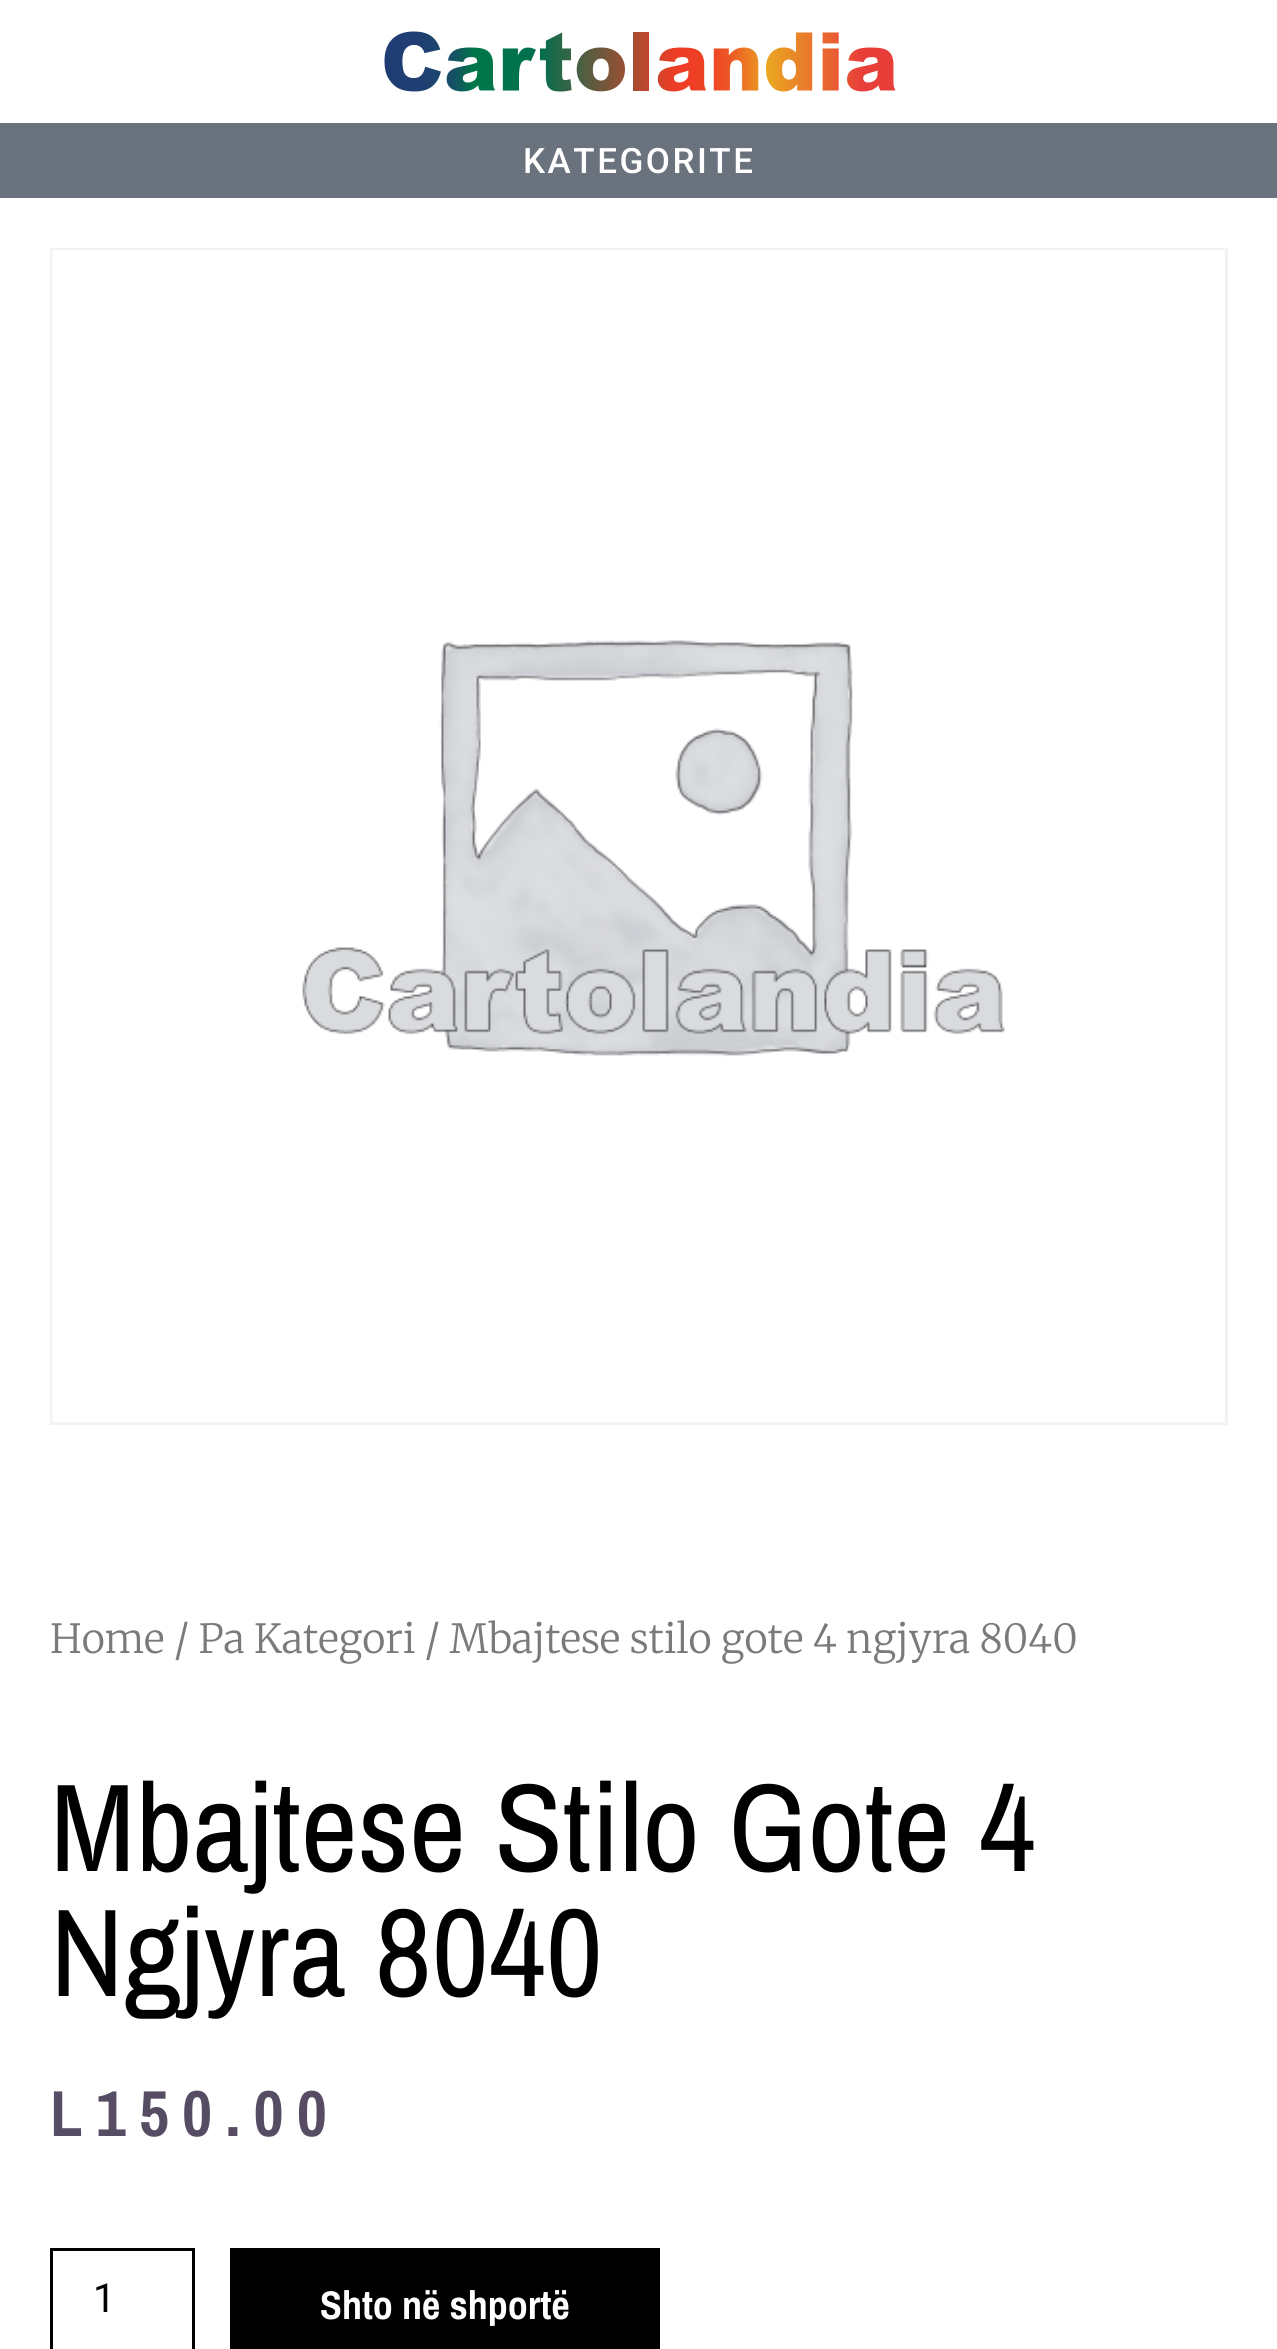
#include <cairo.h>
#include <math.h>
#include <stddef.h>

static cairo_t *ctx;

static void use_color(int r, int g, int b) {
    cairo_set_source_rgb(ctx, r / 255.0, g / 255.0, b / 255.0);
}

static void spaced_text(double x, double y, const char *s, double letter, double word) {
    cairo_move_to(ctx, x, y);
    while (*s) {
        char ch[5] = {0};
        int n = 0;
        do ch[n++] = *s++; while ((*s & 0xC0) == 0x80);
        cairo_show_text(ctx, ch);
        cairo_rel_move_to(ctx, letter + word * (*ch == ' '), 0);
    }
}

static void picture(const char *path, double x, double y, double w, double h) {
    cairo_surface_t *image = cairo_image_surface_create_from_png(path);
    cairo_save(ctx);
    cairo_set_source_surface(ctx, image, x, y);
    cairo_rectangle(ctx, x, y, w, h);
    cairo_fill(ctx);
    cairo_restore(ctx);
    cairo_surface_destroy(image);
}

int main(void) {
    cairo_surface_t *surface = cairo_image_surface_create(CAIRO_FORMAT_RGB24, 1277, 2349);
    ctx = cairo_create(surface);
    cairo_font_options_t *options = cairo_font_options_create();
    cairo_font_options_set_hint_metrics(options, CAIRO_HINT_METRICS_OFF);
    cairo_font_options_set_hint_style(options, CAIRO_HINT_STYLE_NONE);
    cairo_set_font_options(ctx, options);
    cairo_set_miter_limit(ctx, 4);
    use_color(255, 255, 255);
    cairo_paint(ctx);
    picture("img1.png", 384, 31, 512, 61);
    use_color(105, 114, 125);
    cairo_rectangle(ctx, 0, 123, 1277, 75);
    cairo_fill(ctx);
    cairo_select_font_face(ctx, "Roboto Medium", CAIRO_FONT_SLANT_NORMAL, CAIRO_FONT_WEIGHT_NORMAL);
    cairo_set_font_size(ctx, 35);
    use_color(255, 255, 255);
    spaced_text(523, 173, "KATEGORITE", 2.5, 0);
    cairo_rectangle(ctx, 51.5, 249.5, 1175, 1174);
    use_color(242, 242, 242);
    cairo_set_line_width(ctx, 3);
    cairo_stroke(ctx);
    picture("img2.png", 52, 250, 1173, 1173);
    cairo_select_font_face(ctx, "Merriweather Light", CAIRO_FONT_SLANT_NORMAL, CAIRO_FONT_WEIGHT_NORMAL);
    cairo_set_font_size(ctx, 40);
    use_color(122, 122, 122);
    cairo_move_to(ctx, 50, 1653);
    cairo_show_text(ctx, "Home / Pa Kategori / Mbajtese stilo gote 4 ngjyra 8040");
    cairo_select_font_face(ctx, "Archivo Narrow", CAIRO_FONT_SLANT_NORMAL, CAIRO_FONT_WEIGHT_NORMAL);
    cairo_set_font_size(ctx, 125);
    use_color(0, 0, 0);
    cairo_move_to(ctx, 50, 1871);
    cairo_show_text(ctx, "Mbajtese Stilo Gote 4");
    cairo_move_to(ctx, 50, 1996);
    cairo_show_text(ctx, "Ngjyra 8040");
    cairo_select_font_face(ctx, "Archivo Narrow", CAIRO_FONT_SLANT_NORMAL, CAIRO_FONT_WEIGHT_BOLD);
    cairo_set_font_size(ctx, 65);
    use_color(86, 77, 101);
    spaced_text(50, 2136, "L150.00", 13.5, 0);
    cairo_rectangle(ctx, 51.5, 2249.5, 142, 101);
    use_color(0, 0, 0);
    cairo_stroke(ctx);
    cairo_select_font_face(ctx, "Roboto", CAIRO_FONT_SLANT_NORMAL, CAIRO_FONT_WEIGHT_NORMAL);
    cairo_set_font_size(ctx, 40);
    cairo_move_to(ctx, 93, 2312);
    cairo_show_text(ctx, "1");
    cairo_rectangle(ctx, 230, 2248, 430, 101);
    cairo_fill(ctx);
    cairo_select_font_face(ctx, "Archivo Narrow", CAIRO_FONT_SLANT_NORMAL, CAIRO_FONT_WEIGHT_BOLD);
    use_color(255, 255, 255);
    cairo_move_to(ctx, 320, 2319);
    cairo_show_text(ctx, "Shto në shportë");
    cairo_surface_write_to_png(surface, "result.png");
    cairo_font_options_destroy(options);
    cairo_destroy(ctx);
    cairo_surface_destroy(surface);
    return 0;
}
